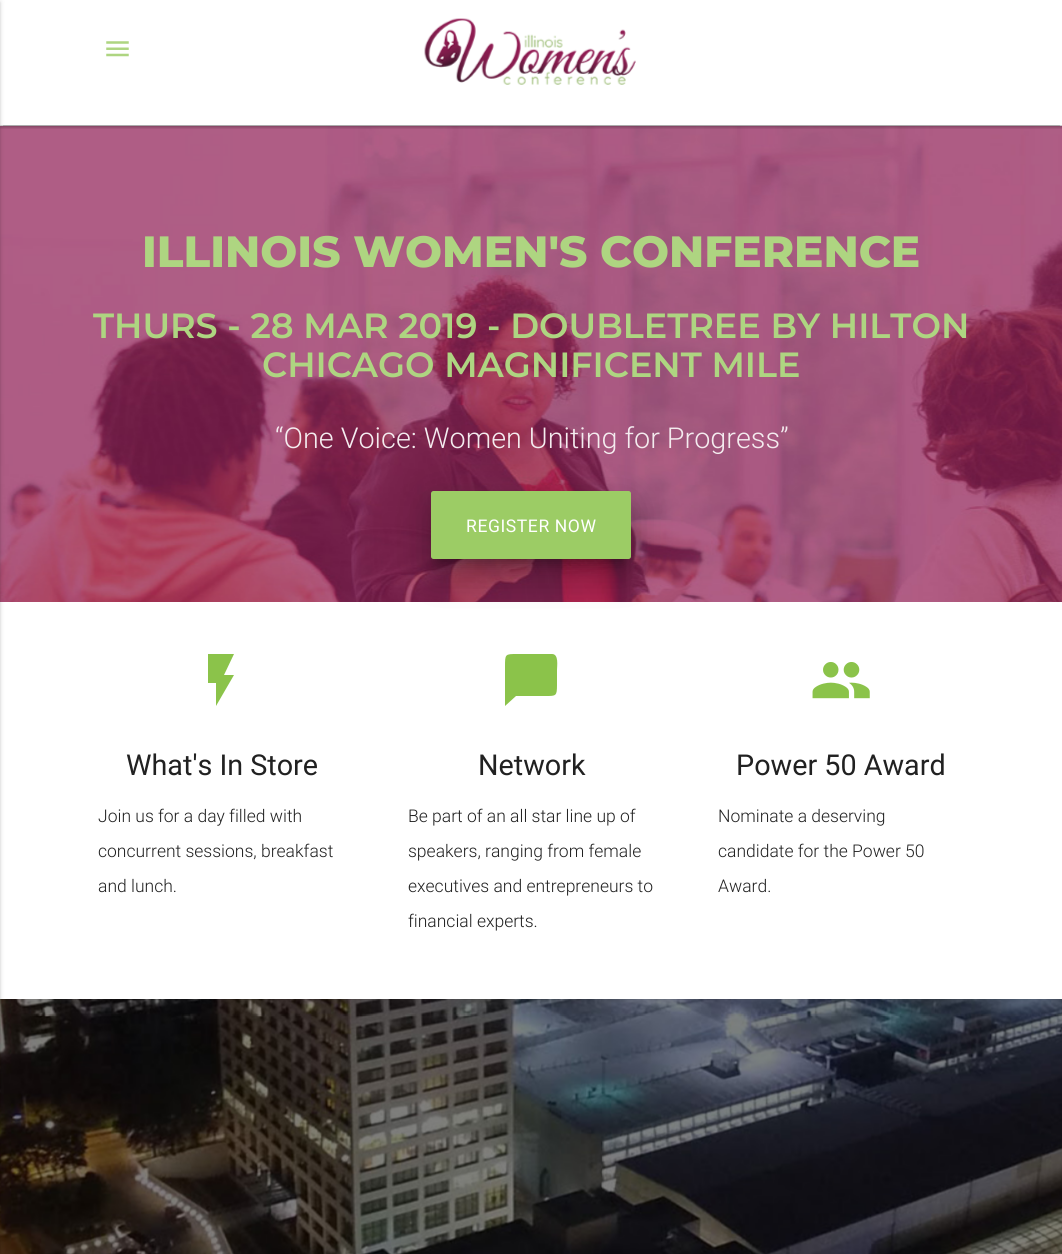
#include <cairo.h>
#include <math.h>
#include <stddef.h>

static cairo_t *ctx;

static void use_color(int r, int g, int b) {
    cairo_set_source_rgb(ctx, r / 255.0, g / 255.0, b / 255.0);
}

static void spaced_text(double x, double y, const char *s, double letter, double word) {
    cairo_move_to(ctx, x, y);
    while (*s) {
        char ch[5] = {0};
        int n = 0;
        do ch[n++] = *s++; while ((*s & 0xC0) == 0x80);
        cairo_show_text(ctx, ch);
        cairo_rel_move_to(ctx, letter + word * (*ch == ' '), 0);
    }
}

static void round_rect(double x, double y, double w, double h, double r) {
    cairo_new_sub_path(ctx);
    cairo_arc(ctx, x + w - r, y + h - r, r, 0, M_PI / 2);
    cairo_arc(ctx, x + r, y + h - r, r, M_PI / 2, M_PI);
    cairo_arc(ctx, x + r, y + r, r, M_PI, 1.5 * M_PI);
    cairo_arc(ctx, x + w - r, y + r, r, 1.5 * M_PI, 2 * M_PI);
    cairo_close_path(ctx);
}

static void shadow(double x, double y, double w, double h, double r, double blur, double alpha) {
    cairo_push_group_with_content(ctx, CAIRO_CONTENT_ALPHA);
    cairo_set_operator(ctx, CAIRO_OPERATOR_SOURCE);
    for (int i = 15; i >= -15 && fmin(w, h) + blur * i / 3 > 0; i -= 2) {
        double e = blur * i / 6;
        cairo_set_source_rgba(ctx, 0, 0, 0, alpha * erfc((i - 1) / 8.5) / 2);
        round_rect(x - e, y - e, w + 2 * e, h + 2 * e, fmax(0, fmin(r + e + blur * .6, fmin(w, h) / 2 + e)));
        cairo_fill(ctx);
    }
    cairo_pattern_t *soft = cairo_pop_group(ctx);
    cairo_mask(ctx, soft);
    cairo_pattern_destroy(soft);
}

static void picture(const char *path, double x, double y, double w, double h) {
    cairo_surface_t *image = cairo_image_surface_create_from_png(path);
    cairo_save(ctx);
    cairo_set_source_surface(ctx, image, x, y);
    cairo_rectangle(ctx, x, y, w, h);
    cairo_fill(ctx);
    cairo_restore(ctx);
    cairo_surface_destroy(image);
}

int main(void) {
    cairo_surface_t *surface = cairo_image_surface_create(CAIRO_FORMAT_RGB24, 1062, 1254);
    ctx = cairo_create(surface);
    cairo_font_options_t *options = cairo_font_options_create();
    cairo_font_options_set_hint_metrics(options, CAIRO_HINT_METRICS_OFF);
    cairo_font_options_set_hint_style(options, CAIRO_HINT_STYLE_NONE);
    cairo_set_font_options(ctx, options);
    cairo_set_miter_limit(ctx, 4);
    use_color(255, 255, 255);
    cairo_paint(ctx);
    picture("img3.png", 0, 126, 1062, 476);
    cairo_save(ctx);
    cairo_rectangle(ctx, 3, 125, 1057, 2);
    cairo_clip(ctx);
    use_color(0, 0, 0);
    shadow(3, -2, 1057, 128, 0, 0.5, 0.2);
    cairo_restore(ctx);
    cairo_save(ctx);
    cairo_rectangle(ctx, 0, 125, 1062, 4);
    cairo_clip(ctx);
    use_color(0, 0, 0);
    shadow(0, -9, 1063, 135, 0, 3, 0.12);
    shadow(0, -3, 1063, 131, 0, 1, 0.14);
    cairo_restore(ctx);
    picture("img1.png", 106, 41, 23, 16);
    picture("img2.png", 424, 18, 212, 67);
    picture("img5.png", 0, 999, 1062, 255);
    use_color(0, 0, 0);
    shadow(-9, 1, 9, 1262, 0, 3, 0.12);
    shadow(-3, 3, 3, 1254, 0, 1, 0.14);
    cairo_select_font_face(ctx, "Montserrat ExtraBold", CAIRO_FONT_SLANT_NORMAL, CAIRO_FONT_WEIGHT_NORMAL);
    cairo_set_font_size(ctx, 43.75);
    use_color(174, 213, 129);
    cairo_move_to(ctx, 142, 267);
    cairo_show_text(ctx, "ILLINOIS WOMEN'S CONFERENCE");
    cairo_select_font_face(ctx, "Montserrat SemiBold", CAIRO_FONT_SLANT_NORMAL, CAIRO_FONT_WEIGHT_NORMAL);
    cairo_set_font_size(ctx, 35);
    cairo_move_to(ctx, 93, 338);
    cairo_show_text(ctx, "THURS - 28 MAR 2019 - DOUBLETREE BY HILTON");
    cairo_move_to(ctx, 262, 377);
    cairo_show_text(ctx, "CHICAGO MAGNIFICENT MILE");
    cairo_select_font_face(ctx, "Roboto Light", CAIRO_FONT_SLANT_NORMAL, CAIRO_FONT_WEIGHT_NORMAL);
    cairo_set_font_size(ctx, 28.75);
    use_color(244, 236, 239);
    cairo_move_to(ctx, 275, 448);
    cairo_show_text(ctx, "“One Voice: Women Uniting for Progress”");
    use_color(0, 0, 0);
    shadow(438, 508, 187, 55, 0, 6, 0.3);
    shadow(425, 493, 213, 80, 9, 19, 0.12);
    shadow(429, 509, 205, 72, 5, 15, 0.14);
    use_color(156, 204, 101);
    round_rect(431, 491, 200, 68, 2.5);
    cairo_fill(ctx);
    cairo_select_font_face(ctx, "Roboto", CAIRO_FONT_SLANT_NORMAL, CAIRO_FONT_WEIGHT_NORMAL);
    cairo_set_font_size(ctx, 17.5);
    use_color(255, 255, 255);
    spaced_text(466, 532, "REGISTER NOW", 0.6, 0);
    use_color(139, 195, 74);
    cairo_new_path(ctx);
    cairo_move_to(ctx, 208, 654);
    cairo_line_to(ctx, 234, 654);
    cairo_line_to(ctx, 224, 675);
    cairo_line_to(ctx, 234, 675);
    cairo_line_to(ctx, 216, 706);
    cairo_line_to(ctx, 216, 683);
    cairo_line_to(ctx, 208, 683);
    cairo_close_path(ctx);
    cairo_fill(ctx);
    cairo_set_font_size(ctx, 28.75);
    use_color(33, 33, 33);
    cairo_move_to(ctx, 126, 775);
    cairo_show_text(ctx, "What's In Store");
    cairo_select_font_face(ctx, "Roboto Light", CAIRO_FONT_SLANT_NORMAL, CAIRO_FONT_WEIGHT_NORMAL);
    cairo_set_font_size(ctx, 17.5);
    cairo_move_to(ctx, 98, 822);
    cairo_show_text(ctx, "Join us for a day filled with");
    cairo_move_to(ctx, 98, 857);
    cairo_show_text(ctx, "concurrent sessions, breakfast");
    cairo_move_to(ctx, 98, 892);
    cairo_show_text(ctx, "and lunch.");
    use_color(139, 195, 74);
    cairo_new_path(ctx);
    cairo_move_to(ctx, 552, 654);
    cairo_curve_to(ctx, 559, 654, 557, 666, 557, 670);
    cairo_line_to(ctx, 557, 685);
    cairo_curve_to(ctx, 557, 696, 556, 696, 546, 696);
    cairo_line_to(ctx, 516, 696);
    cairo_line_to(ctx, 505, 706);
    cairo_line_to(ctx, 505, 667);
    cairo_curve_to(ctx, 505, 654, 505, 654, 517, 654);
    cairo_close_path(ctx);
    cairo_fill(ctx);
    cairo_select_font_face(ctx, "Roboto", CAIRO_FONT_SLANT_NORMAL, CAIRO_FONT_WEIGHT_NORMAL);
    cairo_set_font_size(ctx, 28.75);
    use_color(33, 33, 33);
    cairo_move_to(ctx, 478, 775);
    cairo_show_text(ctx, "Network");
    cairo_select_font_face(ctx, "Roboto Light", CAIRO_FONT_SLANT_NORMAL, CAIRO_FONT_WEIGHT_NORMAL);
    cairo_set_font_size(ctx, 17.5);
    cairo_move_to(ctx, 408, 822);
    cairo_show_text(ctx, "Be part of an all star line up of");
    cairo_move_to(ctx, 408, 857);
    cairo_show_text(ctx, "speakers, ranging from female");
    cairo_move_to(ctx, 408, 892);
    cairo_show_text(ctx, "executives and entrepreneurs to");
    cairo_move_to(ctx, 408, 927);
    cairo_show_text(ctx, "financial experts.");
    picture("img4.png", 812, 662, 58, 37);
    cairo_select_font_face(ctx, "Roboto", CAIRO_FONT_SLANT_NORMAL, CAIRO_FONT_WEIGHT_NORMAL);
    cairo_set_font_size(ctx, 28.75);
    cairo_move_to(ctx, 736, 775);
    cairo_show_text(ctx, "Power 50 Award");
    cairo_select_font_face(ctx, "Roboto Light", CAIRO_FONT_SLANT_NORMAL, CAIRO_FONT_WEIGHT_NORMAL);
    cairo_set_font_size(ctx, 17.5);
    cairo_move_to(ctx, 718, 822);
    cairo_show_text(ctx, "Nominate a deserving");
    cairo_move_to(ctx, 718, 857);
    cairo_show_text(ctx, "candidate for the Power 50");
    cairo_move_to(ctx, 718, 892);
    cairo_show_text(ctx, "Award.");
    cairo_surface_write_to_png(surface, "result.png");
    cairo_font_options_destroy(options);
    cairo_destroy(ctx);
    cairo_surface_destroy(surface);
    return 0;
}
